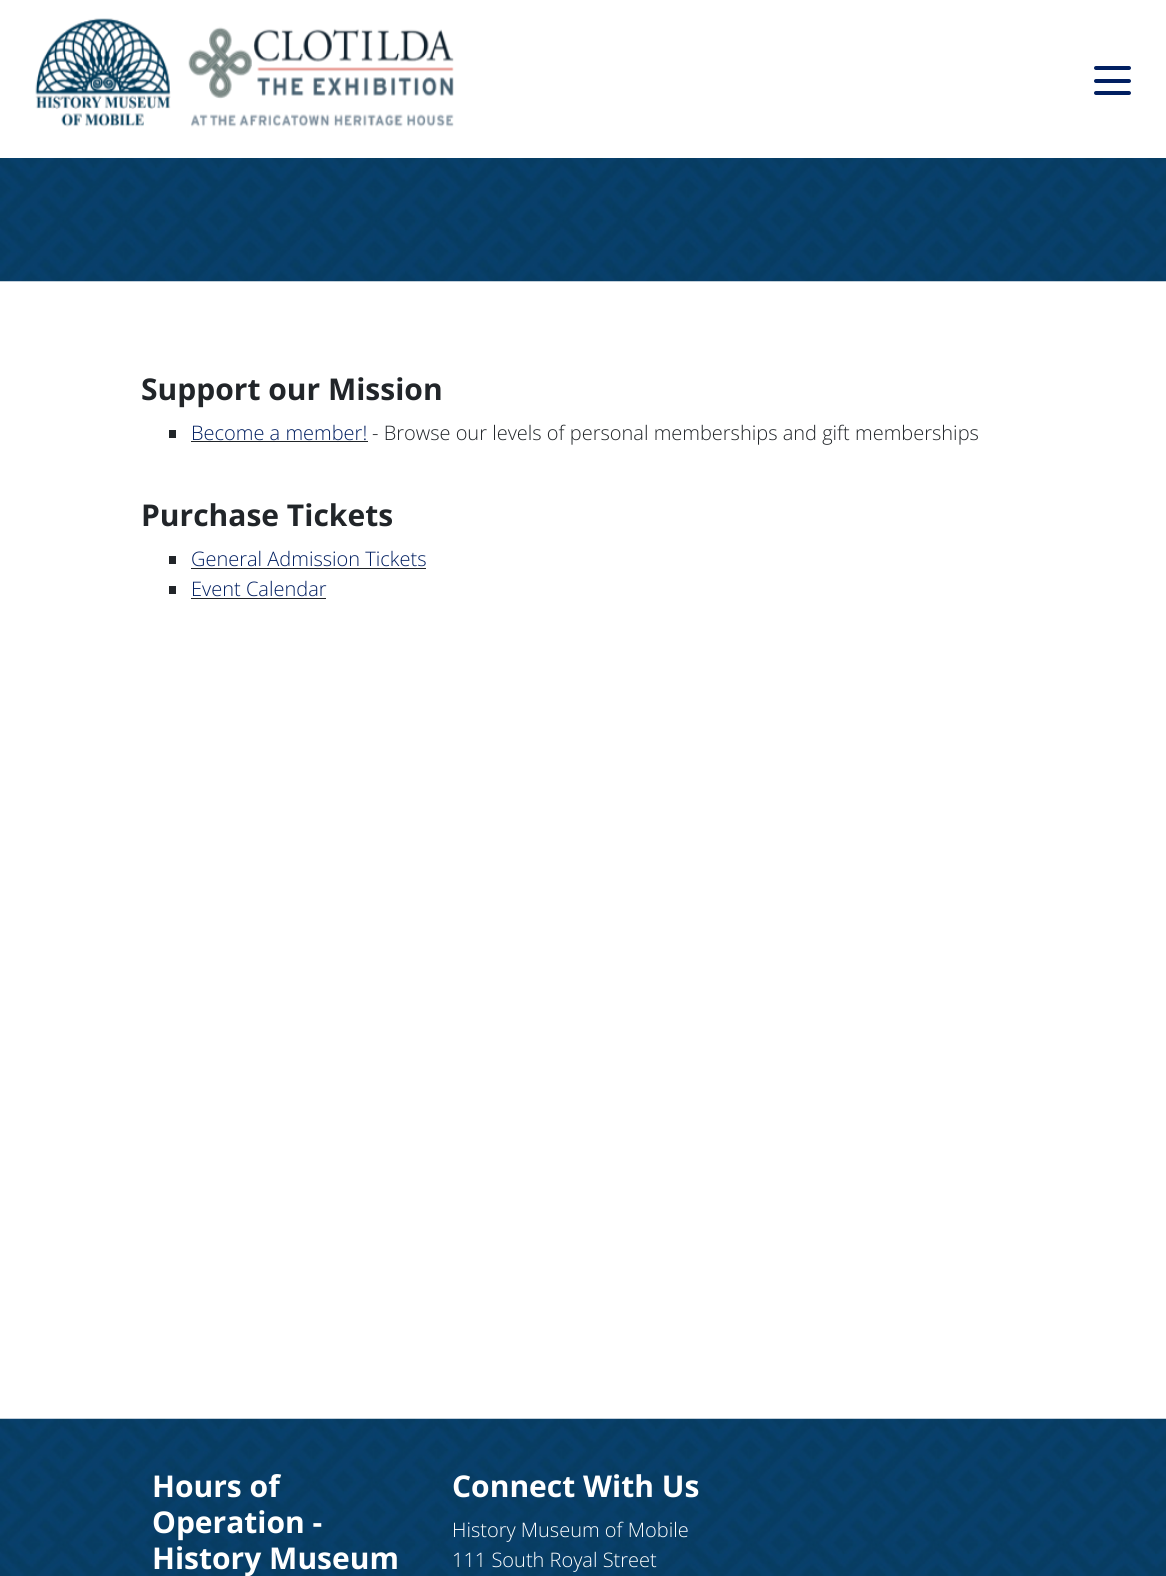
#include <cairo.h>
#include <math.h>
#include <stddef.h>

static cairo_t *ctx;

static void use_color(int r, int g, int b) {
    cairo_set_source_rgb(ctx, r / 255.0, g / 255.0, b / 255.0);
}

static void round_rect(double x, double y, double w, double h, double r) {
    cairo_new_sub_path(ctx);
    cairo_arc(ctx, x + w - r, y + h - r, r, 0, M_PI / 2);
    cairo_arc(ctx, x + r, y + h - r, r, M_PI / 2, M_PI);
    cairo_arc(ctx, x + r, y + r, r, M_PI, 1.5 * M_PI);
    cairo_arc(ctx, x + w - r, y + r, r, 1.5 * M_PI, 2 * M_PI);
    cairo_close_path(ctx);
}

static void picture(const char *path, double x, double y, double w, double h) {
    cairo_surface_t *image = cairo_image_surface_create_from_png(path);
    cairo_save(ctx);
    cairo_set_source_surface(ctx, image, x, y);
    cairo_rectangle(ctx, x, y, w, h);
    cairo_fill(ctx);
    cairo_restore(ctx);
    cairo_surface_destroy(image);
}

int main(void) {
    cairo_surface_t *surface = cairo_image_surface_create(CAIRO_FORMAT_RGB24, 1166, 1576);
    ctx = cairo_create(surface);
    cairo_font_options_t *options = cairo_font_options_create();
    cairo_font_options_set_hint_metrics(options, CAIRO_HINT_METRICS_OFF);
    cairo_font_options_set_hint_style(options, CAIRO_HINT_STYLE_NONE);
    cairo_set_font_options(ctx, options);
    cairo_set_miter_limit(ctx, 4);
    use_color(255, 255, 255);
    cairo_paint(ctx);
    picture("img1.png", 35, 18, 419, 109);
    use_color(1, 31, 97);
    round_rect(1094, 66, 37, 4, 2);
    cairo_fill(ctx);
    round_rect(1094, 79, 37, 4, 2);
    cairo_fill(ctx);
    round_rect(1094, 91, 37, 4, 2);
    cairo_fill(ctx);
    picture("img2.png", 0, 158, 1166, 124);
    cairo_select_font_face(ctx, "Open Sans", CAIRO_FONT_SLANT_NORMAL, CAIRO_FONT_WEIGHT_BOLD);
    cairo_set_font_size(ctx, 30);
    use_color(33, 37, 41);
    cairo_move_to(ctx, 141, 400);
    cairo_show_text(ctx, "Support our Mission");
    cairo_rectangle(ctx, 169, 430, 7, 8);
    cairo_fill(ctx);
    cairo_select_font_face(ctx, "Open Sans Light", CAIRO_FONT_SLANT_NORMAL, CAIRO_FONT_WEIGHT_NORMAL);
    cairo_set_font_size(ctx, 20);
    use_color(1, 31, 97);
    cairo_move_to(ctx, 191, 440);
    cairo_show_text(ctx, "Become a member!");
    use_color(33, 37, 41);
    cairo_rectangle(ctx, 191, 441, 177, 1);
    cairo_fill(ctx);
    cairo_move_to(ctx, 372, 440);
    cairo_show_text(ctx, "- Browse our levels of personal memberships and gift memberships");
    cairo_select_font_face(ctx, "Open Sans", CAIRO_FONT_SLANT_NORMAL, CAIRO_FONT_WEIGHT_BOLD);
    cairo_set_font_size(ctx, 30);
    cairo_move_to(ctx, 141, 526);
    cairo_show_text(ctx, "Purchase Tickets");
    cairo_rectangle(ctx, 169, 556, 7, 8);
    cairo_fill(ctx);
    cairo_select_font_face(ctx, "Open Sans Light", CAIRO_FONT_SLANT_NORMAL, CAIRO_FONT_WEIGHT_NORMAL);
    cairo_set_font_size(ctx, 20);
    use_color(1, 31, 97);
    cairo_move_to(ctx, 191, 566);
    cairo_show_text(ctx, "General Admission Tickets");
    use_color(33, 37, 41);
    cairo_rectangle(ctx, 191, 568, 235, 1);
    cairo_fill(ctx);
    cairo_rectangle(ctx, 169, 586, 7, 8);
    cairo_fill(ctx);
    use_color(1, 31, 97);
    cairo_move_to(ctx, 191, 596);
    cairo_show_text(ctx, "Event Calendar");
    use_color(33, 37, 41);
    cairo_rectangle(ctx, 191, 598, 135, 1);
    cairo_fill(ctx);
    picture("img3.png", 0, 1418, 1166, 158);
    cairo_select_font_face(ctx, "Open Sans", CAIRO_FONT_SLANT_NORMAL, CAIRO_FONT_WEIGHT_BOLD);
    cairo_set_font_size(ctx, 30);
    use_color(255, 255, 255);
    cairo_move_to(ctx, 152, 1497);
    cairo_show_text(ctx, "Hours of");
    cairo_move_to(ctx, 152, 1533);
    cairo_show_text(ctx, "Operation -");
    cairo_move_to(ctx, 152, 1569);
    cairo_show_text(ctx, "History Museum");
    cairo_move_to(ctx, 452, 1497);
    cairo_show_text(ctx, "Connect With Us");
    cairo_select_font_face(ctx, "Open Sans Light", CAIRO_FONT_SLANT_NORMAL, CAIRO_FONT_WEIGHT_NORMAL);
    cairo_set_font_size(ctx, 20);
    cairo_move_to(ctx, 452, 1537);
    cairo_show_text(ctx, "History Museum of Mobile");
    cairo_move_to(ctx, 452, 1567);
    cairo_show_text(ctx, "111 South Royal Street");
    cairo_surface_write_to_png(surface, "result.png");
    cairo_font_options_destroy(options);
    cairo_destroy(ctx);
    cairo_surface_destroy(surface);
    return 0;
}
